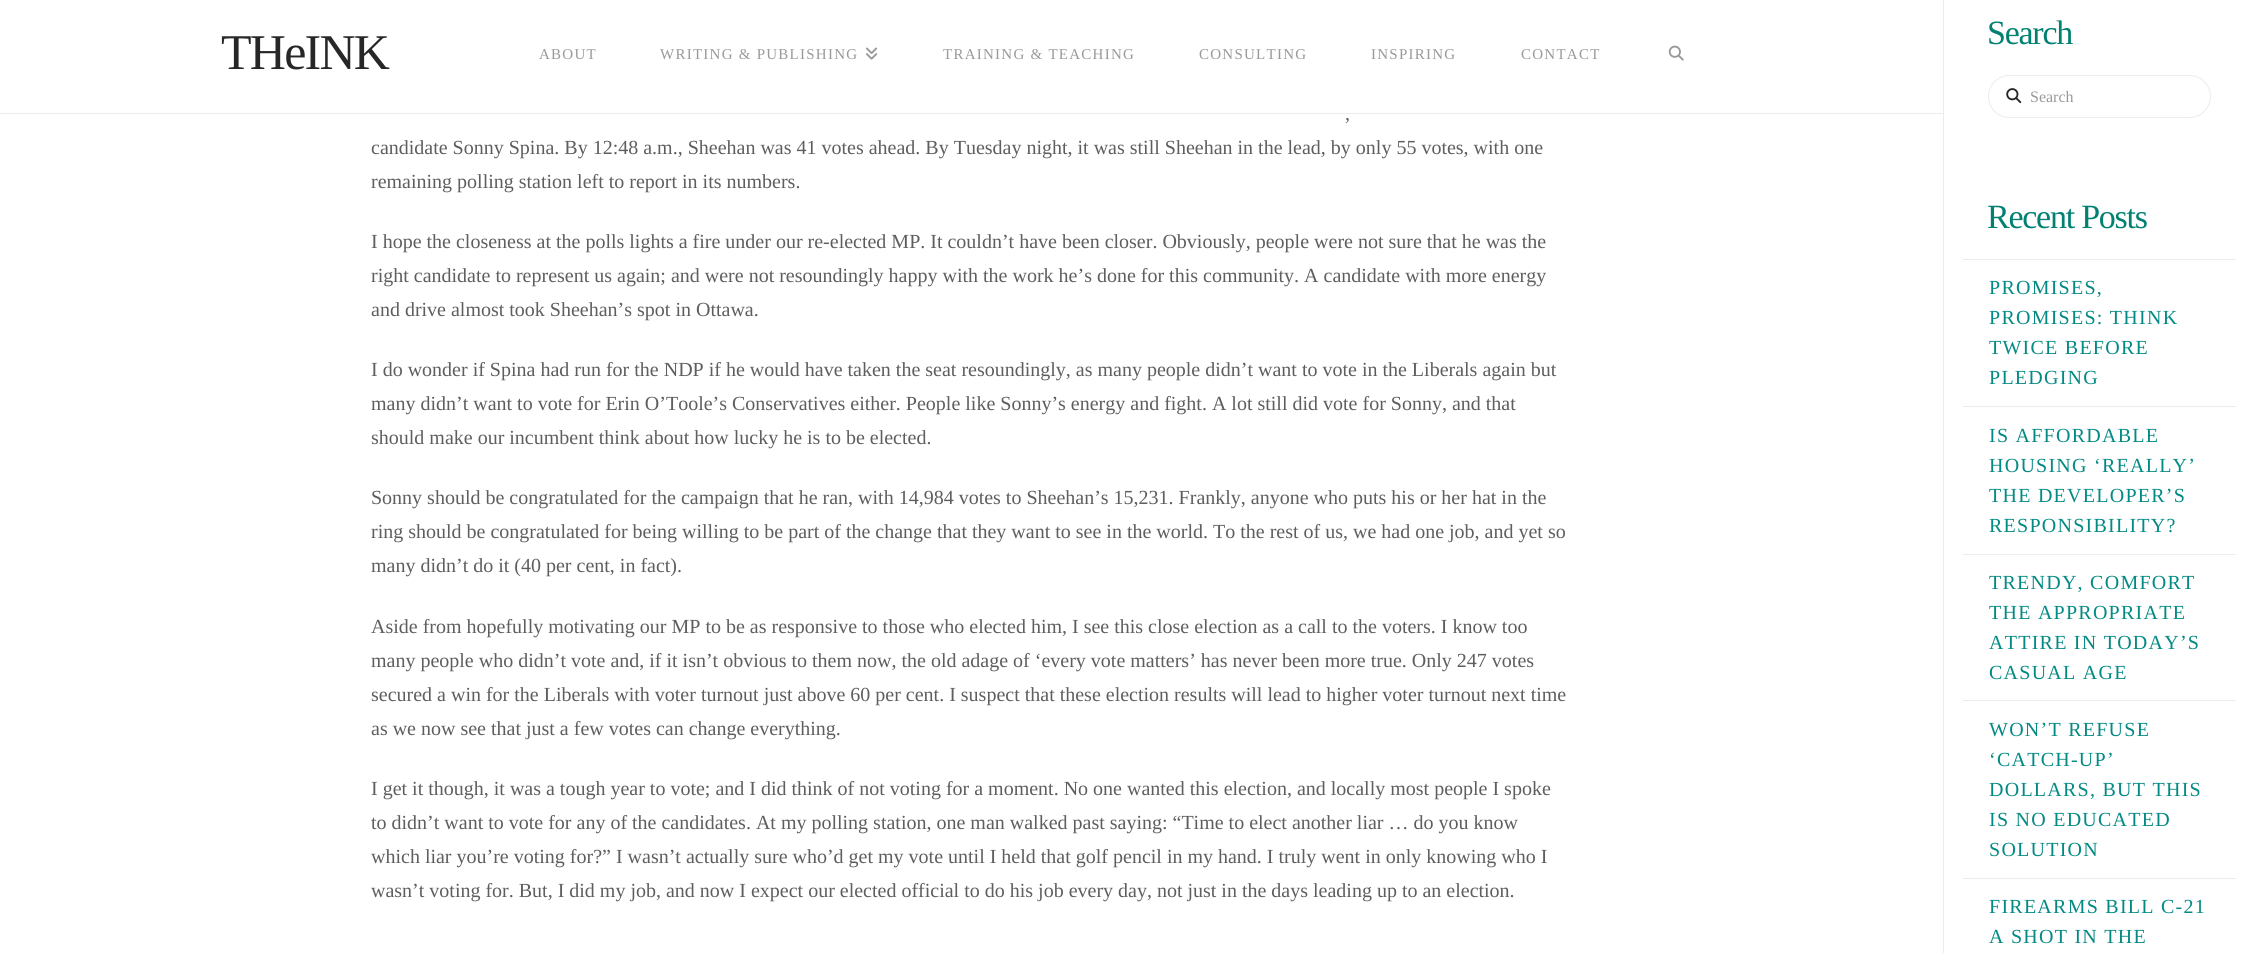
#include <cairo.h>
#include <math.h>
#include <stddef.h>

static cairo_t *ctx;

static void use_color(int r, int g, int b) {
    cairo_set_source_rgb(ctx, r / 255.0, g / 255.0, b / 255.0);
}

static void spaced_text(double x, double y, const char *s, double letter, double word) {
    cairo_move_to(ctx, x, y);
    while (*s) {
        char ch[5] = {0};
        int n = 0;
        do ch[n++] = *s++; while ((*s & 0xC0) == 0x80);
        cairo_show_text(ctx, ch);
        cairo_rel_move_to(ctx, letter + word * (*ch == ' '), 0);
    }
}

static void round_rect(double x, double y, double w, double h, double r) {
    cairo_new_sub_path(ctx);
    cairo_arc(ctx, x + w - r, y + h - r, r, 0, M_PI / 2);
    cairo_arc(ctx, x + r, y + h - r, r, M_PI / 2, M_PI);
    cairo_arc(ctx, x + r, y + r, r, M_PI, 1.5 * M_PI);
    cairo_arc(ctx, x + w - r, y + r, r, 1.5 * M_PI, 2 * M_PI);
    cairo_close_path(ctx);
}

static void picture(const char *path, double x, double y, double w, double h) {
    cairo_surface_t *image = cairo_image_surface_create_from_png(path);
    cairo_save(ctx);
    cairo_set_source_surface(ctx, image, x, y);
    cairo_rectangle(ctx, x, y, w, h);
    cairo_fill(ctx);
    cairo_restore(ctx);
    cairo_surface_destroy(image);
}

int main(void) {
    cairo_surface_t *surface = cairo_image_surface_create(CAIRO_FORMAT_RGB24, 2255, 953);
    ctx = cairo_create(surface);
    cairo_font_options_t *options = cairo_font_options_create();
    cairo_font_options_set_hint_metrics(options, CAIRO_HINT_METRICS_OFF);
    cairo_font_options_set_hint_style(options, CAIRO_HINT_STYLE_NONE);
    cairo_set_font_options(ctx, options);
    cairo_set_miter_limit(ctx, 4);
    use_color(255, 255, 255);
    cairo_paint(ctx);
    use_color(236, 236, 236);
    cairo_rectangle(ctx, 0, 113, 1943, 1);
    cairo_fill(ctx);
    cairo_select_font_face(ctx, "Liberation Serif", CAIRO_FONT_SLANT_NORMAL, CAIRO_FONT_WEIGHT_NORMAL);
    cairo_set_font_size(ctx, 50);
    use_color(39, 39, 39);
    spaced_text(221, 69, "THeINK", -1.75, 0);
    cairo_set_font_size(ctx, 15);
    use_color(153, 153, 153);
    spaced_text(539, 59, "ABOUT", 1.25, 0);
    spaced_text(660, 59, "WRITING & PUBLISHING", 1.25, 0);
    picture("img1.png", 866, 47, 12, 13);
    spaced_text(943, 59, "TRAINING & TEACHING", 1.25, 0);
    spaced_text(1199, 59, "CONSULTING", 1.25, 0);
    spaced_text(1371, 59, "INSPIRING", 1.25, 0);
    spaced_text(1521, 59, "CONTACT", 1.25, 0);
    picture("img2.png", 1668, 45, 16, 16);
    use_color(236, 236, 236);
    cairo_rectangle(ctx, 1943, 0, 1, 953);
    cairo_fill(ctx);
    cairo_set_font_size(ctx, 34);
    use_color(2, 129, 114);
    spaced_text(1987, 44, "Search", -1.25, 0);
    round_rect(1988.5, 75.5, 222, 42, 21);
    use_color(236, 236, 236);
    cairo_set_line_width(ctx, 1);
    cairo_stroke(ctx);
    picture("img3.png", 2006, 88, 16, 16);
    cairo_set_font_size(ctx, 16);
    use_color(153, 153, 153);
    cairo_move_to(ctx, 2030, 102);
    cairo_show_text(ctx, "Search");
    cairo_set_font_size(ctx, 34);
    use_color(2, 129, 114);
    spaced_text(1987, 228, "Recent Posts", -1.25, 0);
    use_color(236, 236, 236);
    cairo_rectangle(ctx, 1963, 259, 273, 1);
    cairo_fill(ctx);
    cairo_rectangle(ctx, 1963, 406, 273, 1);
    cairo_fill(ctx);
    cairo_set_font_size(ctx, 20);
    use_color(3, 138, 132);
    spaced_text(1989, 294, "PROMISES,", 1.25, 0);
    spaced_text(1989, 324, "PROMISES: THINK", 1.25, 0);
    spaced_text(1989, 354, "TWICE BEFORE", 1.25, 0);
    spaced_text(1989, 384, "PLEDGING", 1.25, 0);
    use_color(236, 236, 236);
    cairo_rectangle(ctx, 1963, 554, 273, 1);
    cairo_fill(ctx);
    use_color(3, 138, 132);
    spaced_text(1989, 442, "IS AFFORDABLE", 1.25, 0);
    spaced_text(1989, 472, "HOUSING ‘REALLY’", 1.25, 0);
    spaced_text(1989, 502, "THE DEVELOPER’S", 1.25, 0);
    spaced_text(1989, 532, "RESPONSIBILITY?", 1.25, 0);
    use_color(236, 236, 236);
    cairo_rectangle(ctx, 1963, 700, 273, 1);
    cairo_fill(ctx);
    use_color(3, 138, 132);
    spaced_text(1989, 589, "TRENDY, COMFORT", 1.25, 0);
    spaced_text(1989, 619, "THE APPROPRIATE", 1.25, 0);
    spaced_text(1989, 649, "ATTIRE IN TODAY’S", 1.25, 0);
    spaced_text(1989, 679, "CASUAL AGE", 1.25, 0);
    use_color(236, 236, 236);
    cairo_rectangle(ctx, 1963, 878, 273, 1);
    cairo_fill(ctx);
    use_color(3, 138, 132);
    spaced_text(1989, 736, "WON’T REFUSE", 1.25, 0);
    spaced_text(1989, 766, "‘CATCH-UP’", 1.25, 0);
    spaced_text(1989, 796, "DOLLARS, BUT THIS", 1.25, 0);
    spaced_text(1989, 826, "IS NO EDUCATED", 1.25, 0);
    spaced_text(1989, 856, "SOLUTION", 1.25, 0);
    spaced_text(1989, 913, "FIREARMS BILL C-21", 1.25, 0);
    spaced_text(1989, 943, "A SHOT IN THE", 1.25, 0);
    use_color(94, 94, 94);
    cairo_move_to(ctx, 1345, 120);
    cairo_show_text(ctx, ",");
    cairo_move_to(ctx, 371, 154);
    cairo_show_text(ctx, "candidate Sonny Spina. By 12:48 a.m., Sheehan was 41 votes ahead. By Tuesday night, it was still Sheehan in the lead, by only 55 votes, with one");
    cairo_move_to(ctx, 371, 188);
    cairo_show_text(ctx, "remaining polling station left to report in its numbers.");
    cairo_move_to(ctx, 371, 248);
    cairo_show_text(ctx, "I hope the closeness at the polls lights a fire under our re-elected MP. It couldn’t have been closer. Obviously, people were not sure that he was the");
    cairo_move_to(ctx, 371, 282);
    cairo_show_text(ctx, "right candidate to represent us again; and were not resoundingly happy with the work he’s done for this community. A candidate with more energy");
    cairo_move_to(ctx, 371, 316);
    cairo_show_text(ctx, "and drive almost took Sheehan’s spot in Ottawa.");
    cairo_move_to(ctx, 371, 376);
    cairo_show_text(ctx, "I do wonder if Spina had run for the NDP if he would have taken the seat resoundingly, as many people didn’t want to vote in the Liberals again but");
    cairo_move_to(ctx, 371, 410);
    cairo_show_text(ctx, "many didn’t want to vote for Erin O’Toole’s Conservatives either. People like Sonny’s energy and fight. A lot still did vote for Sonny, and that");
    cairo_move_to(ctx, 371, 444);
    cairo_show_text(ctx, "should make our incumbent think about how lucky he is to be elected.");
    cairo_move_to(ctx, 371, 504);
    cairo_show_text(ctx, "Sonny should be congratulated for the campaign that he ran, with 14,984 votes to Sheehan’s 15,231. Frankly, anyone who puts his or her hat in the");
    cairo_move_to(ctx, 371, 538);
    cairo_show_text(ctx, "ring should be congratulated for being willing to be part of the change that they want to see in the world. To the rest of us, we had one job, and yet so");
    cairo_move_to(ctx, 371, 572);
    cairo_show_text(ctx, "many didn’t do it (40 per cent, in fact).");
    cairo_move_to(ctx, 371, 633);
    cairo_show_text(ctx, "Aside from hopefully motivating our MP to be as responsive to those who elected him, I see this close election as a call to the voters. I know too");
    cairo_move_to(ctx, 371, 667);
    cairo_show_text(ctx, "many people who didn’t vote and, if it isn’t obvious to them now, the old adage of ‘every vote matters’ has never been more true. Only 247 votes");
    cairo_move_to(ctx, 371, 701);
    cairo_show_text(ctx, "secured a win for the Liberals with voter turnout just above 60 per cent. I suspect that these election results will lead to higher voter turnout next time");
    cairo_move_to(ctx, 371, 735);
    cairo_show_text(ctx, "as we now see that just a few votes can change everything.");
    cairo_move_to(ctx, 371, 795);
    cairo_show_text(ctx, "I get it though, it was a tough year to vote; and I did think of not voting for a moment. No one wanted this election, and locally most people I spoke");
    cairo_move_to(ctx, 371, 829);
    cairo_show_text(ctx, "to didn’t want to vote for any of the candidates. At my polling station, one man walked past saying: “Time to elect another liar … do you know");
    cairo_move_to(ctx, 371, 863);
    cairo_show_text(ctx, "which liar you’re voting for?” I wasn’t actually sure who’d get my vote until I held that golf pencil in my hand. I truly went in only knowing who I");
    cairo_move_to(ctx, 371, 897);
    cairo_show_text(ctx, "wasn’t voting for. But, I did my job, and now I expect our elected official to do his job every day, not just in the days leading up to an election.");
    cairo_surface_write_to_png(surface, "result.png");
    cairo_font_options_destroy(options);
    cairo_destroy(ctx);
    cairo_surface_destroy(surface);
    return 0;
}
